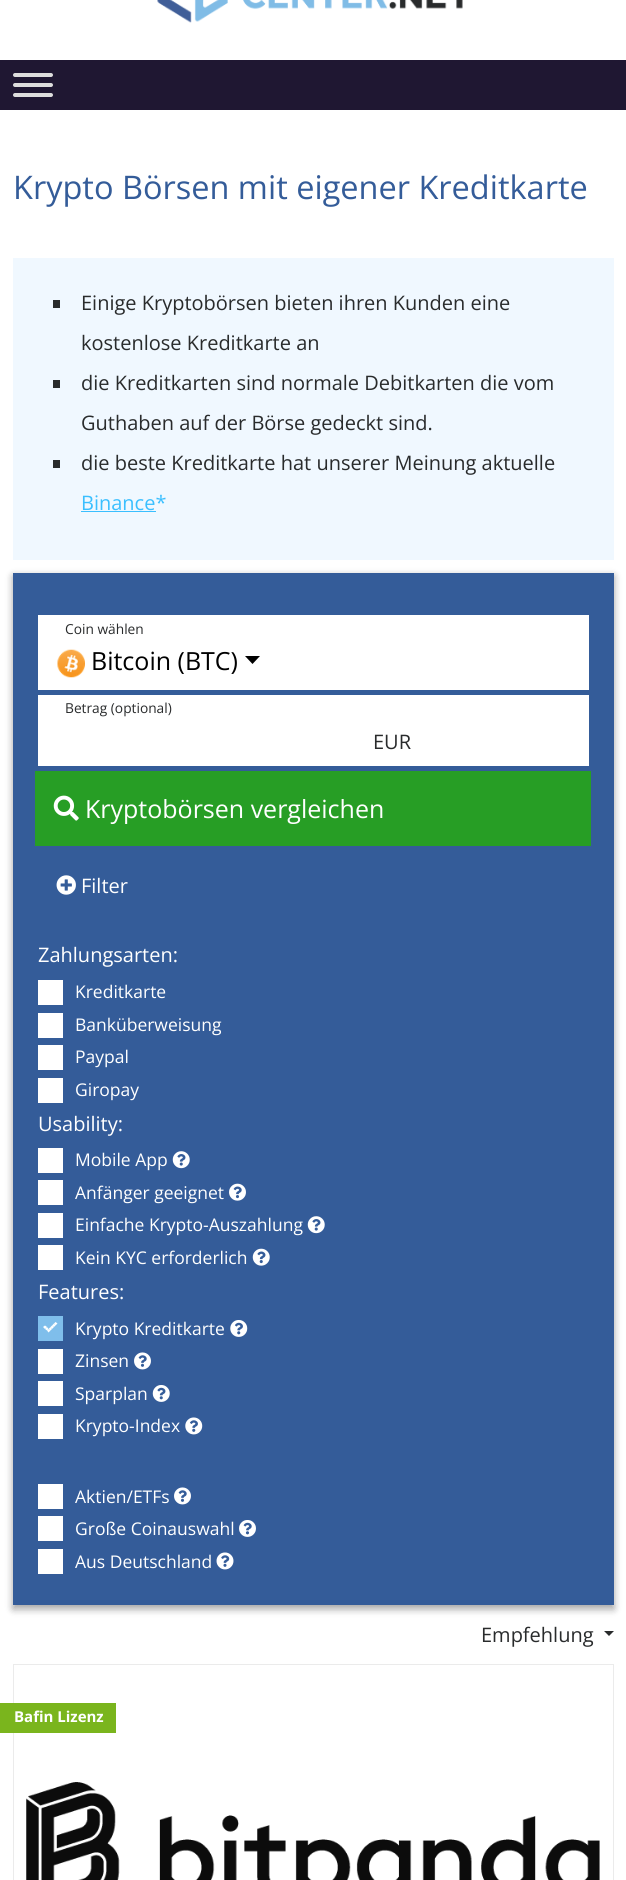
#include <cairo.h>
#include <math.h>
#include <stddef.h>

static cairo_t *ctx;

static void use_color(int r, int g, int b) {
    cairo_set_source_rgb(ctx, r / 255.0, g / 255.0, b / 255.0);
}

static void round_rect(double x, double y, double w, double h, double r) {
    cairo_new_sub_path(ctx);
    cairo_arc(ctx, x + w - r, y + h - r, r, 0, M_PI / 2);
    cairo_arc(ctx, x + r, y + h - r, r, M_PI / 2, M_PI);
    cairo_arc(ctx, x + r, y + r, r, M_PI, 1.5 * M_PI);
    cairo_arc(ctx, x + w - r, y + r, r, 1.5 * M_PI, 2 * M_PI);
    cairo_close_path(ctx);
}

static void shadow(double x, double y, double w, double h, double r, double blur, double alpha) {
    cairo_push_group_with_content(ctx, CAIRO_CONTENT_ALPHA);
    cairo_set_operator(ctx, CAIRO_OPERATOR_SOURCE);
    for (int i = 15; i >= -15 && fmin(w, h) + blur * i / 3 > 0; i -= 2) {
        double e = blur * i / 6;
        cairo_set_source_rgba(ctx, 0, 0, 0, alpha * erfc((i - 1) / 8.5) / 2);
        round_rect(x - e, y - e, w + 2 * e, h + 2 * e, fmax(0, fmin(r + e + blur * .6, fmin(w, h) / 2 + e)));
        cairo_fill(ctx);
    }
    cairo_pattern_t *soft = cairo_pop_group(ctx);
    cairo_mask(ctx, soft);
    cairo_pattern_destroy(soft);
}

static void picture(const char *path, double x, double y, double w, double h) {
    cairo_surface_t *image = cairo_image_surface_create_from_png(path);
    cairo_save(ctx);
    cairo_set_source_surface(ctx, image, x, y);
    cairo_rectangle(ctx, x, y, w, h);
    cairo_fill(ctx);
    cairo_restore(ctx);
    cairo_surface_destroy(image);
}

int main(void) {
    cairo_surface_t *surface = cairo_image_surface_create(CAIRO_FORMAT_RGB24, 626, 1880);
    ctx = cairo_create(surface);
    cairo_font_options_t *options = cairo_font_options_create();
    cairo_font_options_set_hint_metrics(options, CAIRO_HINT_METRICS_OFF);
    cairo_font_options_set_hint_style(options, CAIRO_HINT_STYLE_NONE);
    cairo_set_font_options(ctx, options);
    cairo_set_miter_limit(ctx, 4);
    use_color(255, 255, 255);
    cairo_paint(ctx);
    picture("img1.png", 157, 0, 306, 23);
    use_color(31, 23, 50);
    cairo_rectangle(ctx, 0, 60, 626, 50);
    cairo_fill(ctx);
    use_color(221, 221, 221);
    round_rect(13, 73, 40, 4, 2);
    cairo_fill(ctx);
    round_rect(13, 83, 40, 4, 2);
    cairo_fill(ctx);
    round_rect(13, 93, 40, 4, 2);
    cairo_fill(ctx);
    cairo_select_font_face(ctx, "Open Sans", CAIRO_FONT_SLANT_NORMAL, CAIRO_FONT_WEIGHT_NORMAL);
    cairo_set_font_size(ctx, 32.5);
    use_color(52, 92, 153);
    cairo_move_to(ctx, 13, 199);
    cairo_show_text(ctx, "Krypto Börsen mit eigener Kreditkarte");
    use_color(240, 248, 255);
    cairo_rectangle(ctx, 13, 258, 601, 302);
    cairo_fill(ctx);
    use_color(41, 43, 44);
    cairo_rectangle(ctx, 53, 300, 7, 8);
    cairo_fill(ctx);
    cairo_set_font_size(ctx, 20);
    cairo_move_to(ctx, 81, 310);
    cairo_show_text(ctx, "Einige Kryptobörsen bieten ihren Kunden eine");
    cairo_move_to(ctx, 81, 350);
    cairo_show_text(ctx, "kostenlose Kreditkarte an");
    cairo_rectangle(ctx, 53, 380, 7, 8);
    cairo_fill(ctx);
    cairo_move_to(ctx, 81, 390);
    cairo_show_text(ctx, "die Kreditkarten sind normale Debitkarten die vom");
    cairo_move_to(ctx, 81, 430);
    cairo_show_text(ctx, "Guthaben auf der Börse gedeckt sind.");
    cairo_rectangle(ctx, 53, 460, 7, 8);
    cairo_fill(ctx);
    cairo_move_to(ctx, 81, 470);
    cairo_show_text(ctx, "die beste Kreditkarte hat unserer Meinung aktuelle");
    use_color(58, 191, 255);
    cairo_move_to(ctx, 81, 510);
    cairo_show_text(ctx, "Binance*");
    cairo_rectangle(ctx, 81, 511, 75, 1);
    cairo_fill(ctx);
    use_color(0, 0, 0);
    shadow(13, 576, 601, 1033, 0, 4, 0.23);
    shadow(13, 576, 601, 1033, 0, 4, 0.16);
    use_color(52, 92, 153);
    cairo_rectangle(ctx, 13, 573, 601, 1032);
    cairo_fill(ctx);
    use_color(255, 255, 255);
    cairo_rectangle(ctx, 38, 615, 551, 75);
    cairo_fill(ctx);
    cairo_set_font_size(ctx, 13.75);
    use_color(41, 43, 44);
    cairo_move_to(ctx, 65, 634);
    cairo_show_text(ctx, "Coin wählen");
    picture("img2.png", 57, 649, 28, 29);
    cairo_set_font_size(ctx, 25);
    use_color(0, 0, 0);
    cairo_move_to(ctx, 91, 670);
    cairo_show_text(ctx, "Bitcoin (BTC)");
    cairo_new_path(ctx);
    cairo_move_to(ctx, 245, 656);
    cairo_line_to(ctx, 260, 656);
    cairo_line_to(ctx, 252.5, 664);
    cairo_close_path(ctx);
    cairo_fill(ctx);
    use_color(255, 255, 255);
    cairo_rectangle(ctx, 38, 695, 551, 71);
    cairo_fill(ctx);
    cairo_set_font_size(ctx, 13.75);
    use_color(41, 43, 44);
    cairo_move_to(ctx, 65, 713);
    cairo_show_text(ctx, "Betrag (optional)");
    cairo_set_font_size(ctx, 20);
    cairo_move_to(ctx, 373, 749);
    cairo_show_text(ctx, "EUR");
    use_color(39, 158, 37);
    cairo_rectangle(ctx, 35, 771, 556, 75);
    cairo_fill(ctx);
    picture("img3.png", 53, 795, 26, 26);
    cairo_set_font_size(ctx, 25);
    use_color(255, 255, 255);
    cairo_move_to(ctx, 85, 818);
    cairo_show_text(ctx, "Kryptobörsen vergleichen");
    picture("img4.png", 56, 875, 20, 20);
    cairo_set_font_size(ctx, 20);
    cairo_move_to(ctx, 81, 893);
    cairo_show_text(ctx, "Filter");
    cairo_move_to(ctx, 38, 962);
    cairo_show_text(ctx, "Zahlungsarten:");
    cairo_rectangle(ctx, 38, 980, 25, 25);
    cairo_fill(ctx);
    cairo_set_font_size(ctx, 17.5);
    cairo_move_to(ctx, 75, 998);
    cairo_show_text(ctx, "Kreditkarte");
    cairo_rectangle(ctx, 38, 1013, 25, 25);
    cairo_fill(ctx);
    cairo_move_to(ctx, 75, 1031);
    cairo_show_text(ctx, "Banküberweisung");
    cairo_rectangle(ctx, 38, 1045, 25, 25);
    cairo_fill(ctx);
    cairo_move_to(ctx, 75, 1063);
    cairo_show_text(ctx, "Paypal");
    cairo_rectangle(ctx, 38, 1078, 25, 25);
    cairo_fill(ctx);
    cairo_move_to(ctx, 75, 1096);
    cairo_show_text(ctx, "Giropay");
    cairo_set_font_size(ctx, 20);
    cairo_move_to(ctx, 38, 1131);
    cairo_show_text(ctx, "Usability:");
    cairo_rectangle(ctx, 38, 1148, 25, 25);
    cairo_fill(ctx);
    cairo_set_font_size(ctx, 17.5);
    cairo_move_to(ctx, 75, 1166);
    cairo_show_text(ctx, "Mobile App");
    picture("img5.png", 172, 1151, 18, 18);
    cairo_rectangle(ctx, 38, 1180, 25, 25);
    cairo_fill(ctx);
    cairo_move_to(ctx, 75, 1199);
    cairo_show_text(ctx, "Anfänger geeignet");
    picture("img6.png", 229, 1183, 17, 18);
    cairo_rectangle(ctx, 38, 1213, 25, 25);
    cairo_fill(ctx);
    cairo_move_to(ctx, 75, 1231);
    cairo_show_text(ctx, "Einfache Krypto-Auszahlung");
    picture("img5.png", 307, 1216, 18, 18);
    cairo_rectangle(ctx, 38, 1245, 25, 25);
    cairo_fill(ctx);
    cairo_move_to(ctx, 75, 1264);
    cairo_show_text(ctx, "Kein KYC erforderlich");
    picture("img7.png", 252, 1248, 18, 18);
    cairo_set_font_size(ctx, 20);
    cairo_move_to(ctx, 38, 1299);
    cairo_show_text(ctx, "Features:");
    use_color(127, 190, 235);
    cairo_rectangle(ctx, 38, 1316, 25, 25);
    cairo_fill(ctx);
    cairo_set_font_size(ctx, 17.5);
    use_color(255, 255, 255);
    cairo_move_to(ctx, 75, 1335);
    cairo_show_text(ctx, "Krypto Kreditkarte");
    picture("img8.png", 230, 1320, 18, 17);
    cairo_new_path(ctx);
    cairo_move_to(ctx, 55.5, 1322);
    cairo_line_to(ctx, 57.5, 1323.5);
    cairo_line_to(ctx, 55.5, 1325.5);
    cairo_line_to(ctx, 54, 1323.5);
    cairo_close_path(ctx);
    cairo_fill(ctx);
    cairo_new_path(ctx);
    cairo_move_to(ctx, 54, 1323.5);
    cairo_line_to(ctx, 55.5, 1325.5);
    cairo_line_to(ctx, 54, 1327);
    cairo_line_to(ctx, 52, 1325.5);
    cairo_close_path(ctx);
    cairo_fill(ctx);
    cairo_new_path(ctx);
    cairo_move_to(ctx, 52, 1325.5);
    cairo_line_to(ctx, 54, 1327);
    cairo_line_to(ctx, 52, 1329);
    cairo_line_to(ctx, 50.5, 1327);
    cairo_close_path(ctx);
    cairo_fill(ctx);
    cairo_new_path(ctx);
    cairo_move_to(ctx, 50.5, 1327);
    cairo_line_to(ctx, 52, 1329);
    cairo_line_to(ctx, 50.5, 1330.5);
    cairo_line_to(ctx, 48.5, 1329);
    cairo_close_path(ctx);
    cairo_fill(ctx);
    cairo_new_path(ctx);
    cairo_move_to(ctx, 48.5, 1329);
    cairo_line_to(ctx, 50.5, 1330.5);
    cairo_line_to(ctx, 48.5, 1332.5);
    cairo_line_to(ctx, 47, 1330.5);
    cairo_close_path(ctx);
    cairo_fill(ctx);
    cairo_new_path(ctx);
    cairo_move_to(ctx, 47, 1327);
    cairo_line_to(ctx, 48.5, 1329);
    cairo_line_to(ctx, 47, 1330.5);
    cairo_line_to(ctx, 45, 1329);
    cairo_close_path(ctx);
    cairo_fill(ctx);
    cairo_new_path(ctx);
    cairo_move_to(ctx, 45, 1325.5);
    cairo_line_to(ctx, 47, 1327);
    cairo_line_to(ctx, 45, 1329);
    cairo_line_to(ctx, 43, 1327);
    cairo_close_path(ctx);
    cairo_fill(ctx);
    cairo_rectangle(ctx, 38, 1349, 25, 25);
    cairo_fill(ctx);
    cairo_move_to(ctx, 75, 1367);
    cairo_show_text(ctx, "Zinsen");
    picture("img9.png", 134, 1352, 17, 18);
    cairo_rectangle(ctx, 38, 1381, 25, 25);
    cairo_fill(ctx);
    cairo_move_to(ctx, 75, 1400);
    cairo_show_text(ctx, "Sparplan");
    picture("img10.png", 152, 1385, 18, 17);
    cairo_rectangle(ctx, 38, 1414, 25, 25);
    cairo_fill(ctx);
    cairo_move_to(ctx, 75, 1432);
    cairo_show_text(ctx, "Krypto-Index");
    picture("img11.png", 185, 1417, 18, 18);
    cairo_rectangle(ctx, 38, 1484, 25, 25);
    cairo_fill(ctx);
    cairo_move_to(ctx, 75, 1503);
    cairo_show_text(ctx, "Aktien/ETFs");
    picture("img9.png", 174, 1487, 17, 18);
    cairo_rectangle(ctx, 38, 1516, 25, 25);
    cairo_fill(ctx);
    cairo_move_to(ctx, 75, 1535);
    cairo_show_text(ctx, "Große Coinauswahl");
    picture("img12.png", 239, 1520, 17, 17);
    cairo_rectangle(ctx, 38, 1549, 25, 25);
    cairo_fill(ctx);
    cairo_move_to(ctx, 75, 1568);
    cairo_show_text(ctx, "Aus Deutschland");
    picture("img13.png", 216, 1552, 18, 18);
    cairo_set_font_size(ctx, 20);
    use_color(41, 43, 44);
    cairo_move_to(ctx, 481, 1642);
    cairo_show_text(ctx, "Empfehlung");
    cairo_new_path(ctx);
    cairo_move_to(ctx, 604, 1631);
    cairo_line_to(ctx, 614, 1631);
    cairo_line_to(ctx, 609, 1636);
    cairo_close_path(ctx);
    cairo_fill(ctx);
    cairo_rectangle(ctx, 13.5, 1664.5, 600, 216);
    use_color(235, 235, 235);
    cairo_set_line_width(ctx, 1);
    cairo_stroke(ctx);
    use_color(122, 181, 29);
    cairo_rectangle(ctx, 0, 1703, 116, 30);
    cairo_fill(ctx);
    cairo_select_font_face(ctx, "Open Sans", CAIRO_FONT_SLANT_NORMAL, CAIRO_FONT_WEIGHT_BOLD);
    cairo_set_font_size(ctx, 15);
    use_color(255, 255, 255);
    cairo_move_to(ctx, 14, 1722);
    cairo_show_text(ctx, "Bafin Lizenz");
    picture("img14.png", 26, 1782, 574, 98);
    cairo_surface_write_to_png(surface, "result.png");
    cairo_font_options_destroy(options);
    cairo_destroy(ctx);
    cairo_surface_destroy(surface);
    return 0;
}
